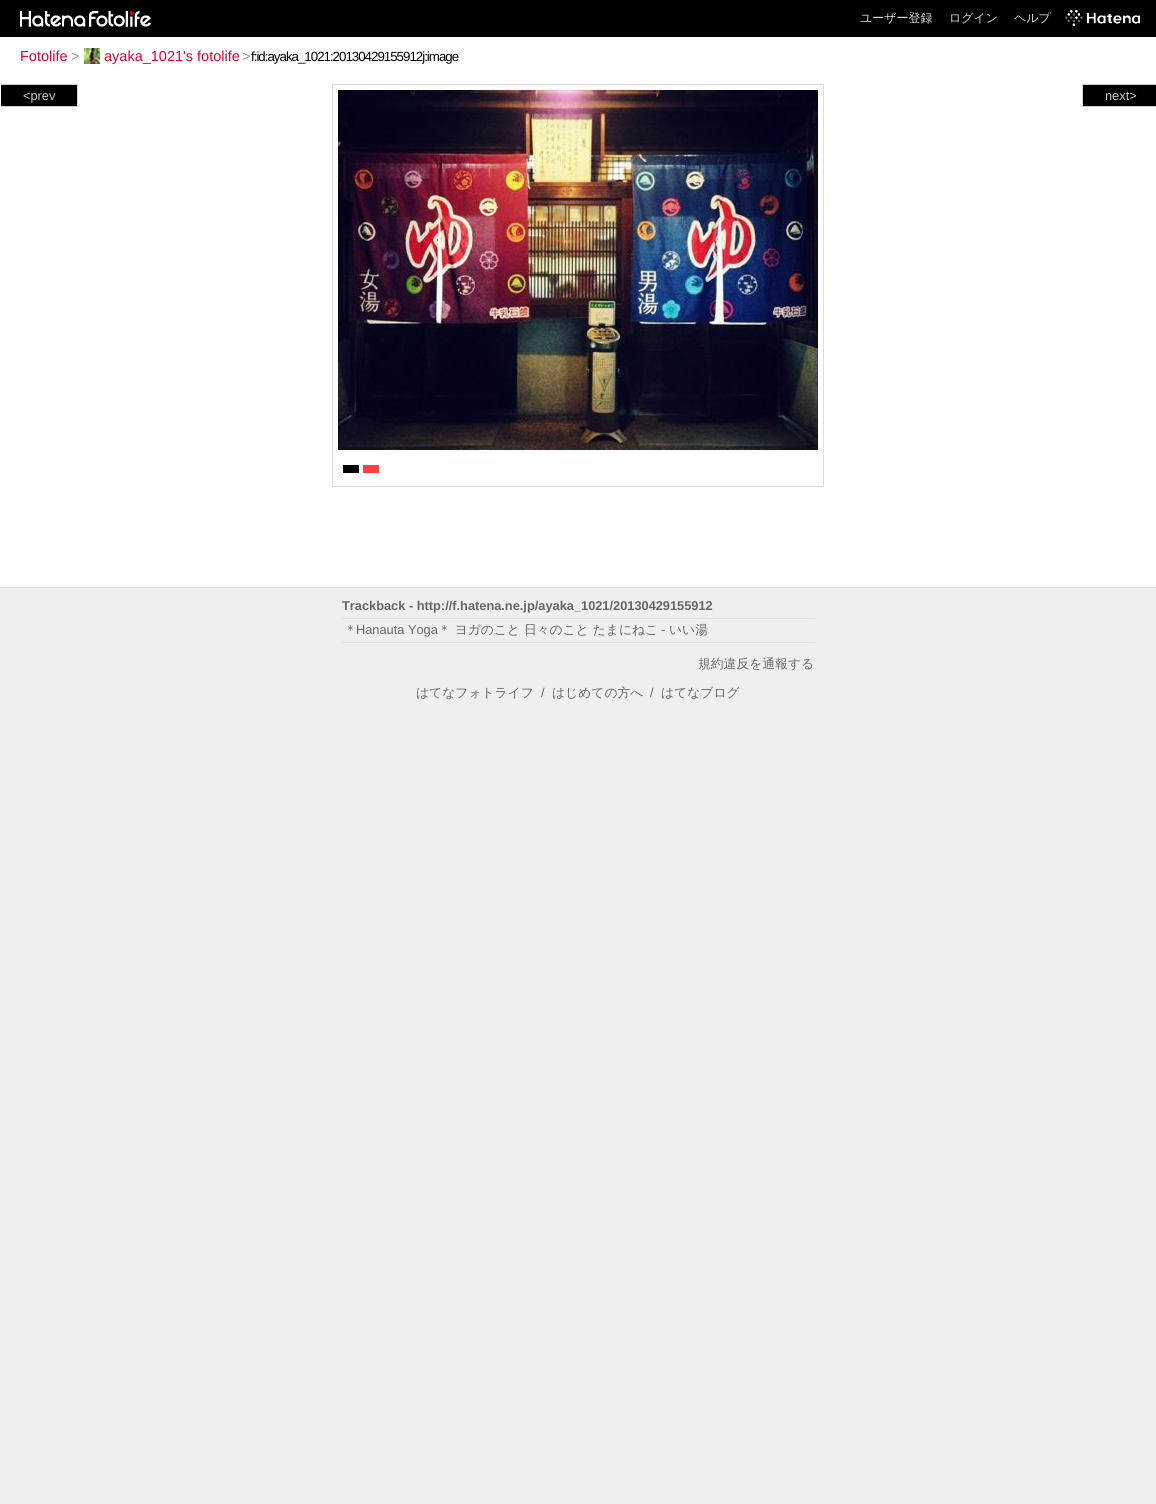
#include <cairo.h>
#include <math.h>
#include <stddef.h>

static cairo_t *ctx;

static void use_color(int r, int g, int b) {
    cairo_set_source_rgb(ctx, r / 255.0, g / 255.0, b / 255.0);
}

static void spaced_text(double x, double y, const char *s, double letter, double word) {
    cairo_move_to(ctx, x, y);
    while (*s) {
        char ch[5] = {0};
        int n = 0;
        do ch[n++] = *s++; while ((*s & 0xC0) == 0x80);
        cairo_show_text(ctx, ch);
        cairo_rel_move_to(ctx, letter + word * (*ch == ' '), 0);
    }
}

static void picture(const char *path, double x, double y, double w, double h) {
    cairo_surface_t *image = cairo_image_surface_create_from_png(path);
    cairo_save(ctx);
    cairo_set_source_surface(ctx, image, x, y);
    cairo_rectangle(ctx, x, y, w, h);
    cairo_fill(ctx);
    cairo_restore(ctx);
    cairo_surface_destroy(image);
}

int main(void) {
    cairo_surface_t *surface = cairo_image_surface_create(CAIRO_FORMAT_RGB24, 1156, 1504);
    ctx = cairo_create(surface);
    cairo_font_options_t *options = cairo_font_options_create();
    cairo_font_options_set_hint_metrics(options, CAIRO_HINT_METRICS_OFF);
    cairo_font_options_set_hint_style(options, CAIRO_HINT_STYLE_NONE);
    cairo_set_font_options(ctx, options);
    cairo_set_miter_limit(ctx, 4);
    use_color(239, 239, 239);
    cairo_paint(ctx);
    use_color(0, 0, 0);
    cairo_rectangle(ctx, 0, 0, 1156, 37);
    cairo_fill(ctx);
    picture("img1.png", 20, 11, 66, 16);
    picture("img2.png", 89, 11, 62, 16);
    cairo_select_font_face(ctx, "WenQuanYi Zen Hei Medium", CAIRO_FONT_SLANT_NORMAL, CAIRO_FONT_WEIGHT_NORMAL);
    cairo_set_font_size(ctx, 12);
    use_color(221, 221, 221);
    cairo_move_to(ctx, 860, 22);
    cairo_show_text(ctx, "ユーザー登録");
    cairo_move_to(ctx, 949, 22);
    cairo_show_text(ctx, "ログイン");
    cairo_move_to(ctx, 1014, 22);
    cairo_show_text(ctx, "ヘルプ");
    picture("img3.png", 1065, 10, 75, 16);
    use_color(255, 255, 255);
    cairo_rectangle(ctx, 0, 37, 1156, 550);
    cairo_fill(ctx);
    cairo_select_font_face(ctx, "Liberation Sans", CAIRO_FONT_SLANT_NORMAL, CAIRO_FONT_WEIGHT_NORMAL);
    cairo_set_font_size(ctx, 14.5);
    use_color(222, 0, 47);
    cairo_move_to(ctx, 20, 61);
    cairo_show_text(ctx, "Fotolife");
    use_color(153, 153, 153);
    cairo_move_to(ctx, 71, 61);
    cairo_show_text(ctx, ">");
    picture("img4.png", 84, 48, 16, 16);
    use_color(222, 0, 47);
    cairo_move_to(ctx, 104, 61);
    cairo_show_text(ctx, "ayaka_1021's fotolife");
    use_color(153, 153, 153);
    cairo_move_to(ctx, 242, 61);
    cairo_show_text(ctx, ">");
    cairo_set_font_size(ctx, 13.3);
    use_color(0, 0, 0);
    spaced_text(251, 61, "f:id:ayaka_1021:20130429155912j:image", -1, 0);
    use_color(222, 222, 222);
    cairo_rectangle(ctx, 0, 587, 1156, 1);
    cairo_fill(ctx);
    use_color(0, 0, 0);
    cairo_rectangle(ctx, 1, 85, 76, 21);
    cairo_fill(ctx);
    use_color(204, 204, 204);
    cairo_rectangle(ctx, 1, 84, 77, 1);
    cairo_fill(ctx);
    cairo_rectangle(ctx, 77, 84, 1, 23);
    cairo_fill(ctx);
    cairo_rectangle(ctx, 1, 106, 77, 1);
    cairo_fill(ctx);
    cairo_set_font_size(ctx, 12.8);
    cairo_move_to(ctx, 23, 100);
    cairo_show_text(ctx, "<prev");
    cairo_rectangle(ctx, 332.5, 84.5, 491, 402);
    use_color(222, 222, 222);
    cairo_set_line_width(ctx, 1);
    cairo_stroke(ctx);
    picture("img5.png", 338, 90, 480, 360);
    use_color(0, 0, 0);
    cairo_rectangle(ctx, 343, 465, 16, 8);
    cairo_fill(ctx);
    use_color(255, 64, 64);
    cairo_rectangle(ctx, 363, 465, 16, 8);
    cairo_fill(ctx);
    use_color(0, 0, 0);
    cairo_rectangle(ctx, 1083, 85, 73, 21);
    cairo_fill(ctx);
    use_color(204, 204, 204);
    cairo_rectangle(ctx, 1082, 84, 74, 1);
    cairo_fill(ctx);
    cairo_rectangle(ctx, 1082, 106, 74, 1);
    cairo_fill(ctx);
    cairo_rectangle(ctx, 1082, 84, 1, 23);
    cairo_fill(ctx);
    cairo_move_to(ctx, 1105, 100);
    cairo_show_text(ctx, "next>");
    cairo_select_font_face(ctx, "Liberation Sans", CAIRO_FONT_SLANT_NORMAL, CAIRO_FONT_WEIGHT_BOLD);
    use_color(102, 102, 102);
    cairo_move_to(ctx, 342, 610);
    cairo_show_text(ctx, "Trackback - http://f.hatena.ne.jp/ayaka_1021/20130429155912");
    use_color(225, 225, 225);
    cairo_rectangle(ctx, 342, 618, 473, 1);
    cairo_fill(ctx);
    cairo_rectangle(ctx, 342, 642, 473, 1);
    cairo_fill(ctx);
    cairo_select_font_face(ctx, "WenQuanYi Zen Hei Medium", CAIRO_FONT_SLANT_NORMAL, CAIRO_FONT_WEIGHT_NORMAL);
    use_color(102, 102, 102);
    cairo_move_to(ctx, 344, 634);
    cairo_show_text(ctx, "＊");
    cairo_select_font_face(ctx, "Liberation Sans", CAIRO_FONT_SLANT_NORMAL, CAIRO_FONT_WEIGHT_NORMAL);
    cairo_move_to(ctx, 356, 634);
    cairo_show_text(ctx, "Hanauta Yoga");
    cairo_select_font_face(ctx, "WenQuanYi Zen Hei Medium", CAIRO_FONT_SLANT_NORMAL, CAIRO_FONT_WEIGHT_NORMAL);
    cairo_move_to(ctx, 438, 634);
    cairo_show_text(ctx, "＊ ヨガのこと 日々のこと たまにねこ");
    cairo_select_font_face(ctx, "Liberation Sans", CAIRO_FONT_SLANT_NORMAL, CAIRO_FONT_WEIGHT_NORMAL);
    cairo_move_to(ctx, 661, 634);
    cairo_show_text(ctx, "-");
    cairo_select_font_face(ctx, "WenQuanYi Zen Hei Medium", CAIRO_FONT_SLANT_NORMAL, CAIRO_FONT_WEIGHT_NORMAL);
    cairo_move_to(ctx, 669, 634);
    cairo_show_text(ctx, "いい湯");
    cairo_move_to(ctx, 698, 668);
    cairo_show_text(ctx, "規約違反を通報する");
    cairo_move_to(ctx, 416, 697);
    cairo_show_text(ctx, "はてなフォトライフ");
    cairo_select_font_face(ctx, "Liberation Sans", CAIRO_FONT_SLANT_NORMAL, CAIRO_FONT_WEIGHT_NORMAL);
    cairo_move_to(ctx, 541, 697);
    cairo_show_text(ctx, "/");
    cairo_select_font_face(ctx, "WenQuanYi Zen Hei Medium", CAIRO_FONT_SLANT_NORMAL, CAIRO_FONT_WEIGHT_NORMAL);
    cairo_move_to(ctx, 552, 697);
    cairo_show_text(ctx, "はじめての方へ");
    cairo_select_font_face(ctx, "Liberation Sans", CAIRO_FONT_SLANT_NORMAL, CAIRO_FONT_WEIGHT_NORMAL);
    cairo_move_to(ctx, 650, 697);
    cairo_show_text(ctx, "/");
    cairo_select_font_face(ctx, "WenQuanYi Zen Hei Medium", CAIRO_FONT_SLANT_NORMAL, CAIRO_FONT_WEIGHT_NORMAL);
    cairo_move_to(ctx, 661, 697);
    cairo_show_text(ctx, "はてなブログ");
    cairo_surface_write_to_png(surface, "result.png");
    cairo_font_options_destroy(options);
    cairo_destroy(ctx);
    cairo_surface_destroy(surface);
    return 0;
}
